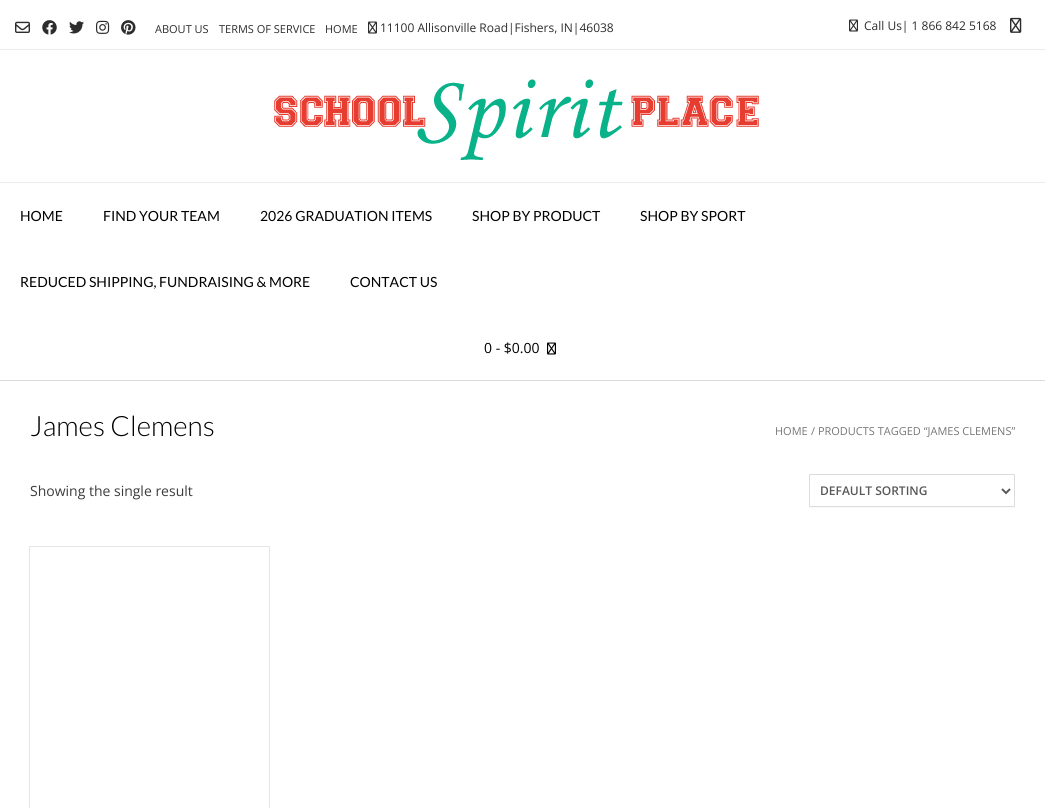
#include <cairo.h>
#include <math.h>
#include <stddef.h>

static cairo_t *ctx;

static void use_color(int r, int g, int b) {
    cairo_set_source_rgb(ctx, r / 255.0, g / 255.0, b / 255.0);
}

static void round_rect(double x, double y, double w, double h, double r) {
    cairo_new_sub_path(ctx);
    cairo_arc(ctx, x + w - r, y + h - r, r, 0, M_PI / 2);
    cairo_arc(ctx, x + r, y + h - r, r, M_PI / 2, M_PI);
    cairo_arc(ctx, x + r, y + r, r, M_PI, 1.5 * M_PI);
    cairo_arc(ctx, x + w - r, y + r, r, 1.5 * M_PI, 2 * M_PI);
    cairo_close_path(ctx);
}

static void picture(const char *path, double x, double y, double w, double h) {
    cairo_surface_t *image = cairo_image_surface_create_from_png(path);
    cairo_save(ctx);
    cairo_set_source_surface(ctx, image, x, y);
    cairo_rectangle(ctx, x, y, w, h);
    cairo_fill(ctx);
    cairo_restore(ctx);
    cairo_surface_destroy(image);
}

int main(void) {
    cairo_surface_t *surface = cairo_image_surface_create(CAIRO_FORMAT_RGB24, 1045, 808);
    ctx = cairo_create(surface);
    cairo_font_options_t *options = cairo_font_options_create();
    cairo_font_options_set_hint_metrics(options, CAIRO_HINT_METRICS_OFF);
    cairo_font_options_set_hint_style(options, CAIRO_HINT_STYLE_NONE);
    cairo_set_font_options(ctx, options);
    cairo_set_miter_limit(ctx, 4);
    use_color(255, 255, 255);
    cairo_paint(ctx);
    use_color(219, 219, 219);
    cairo_rectangle(ctx, 0, 380, 1045, 1);
    cairo_fill(ctx);
    use_color(235, 235, 235);
    cairo_rectangle(ctx, 0, 49, 1045, 1);
    cairo_fill(ctx);
    picture("img1.png", 15, 21, 15, 12);
    picture("img2.png", 42, 20, 15, 15);
    picture("img3.png", 69, 21, 15, 13);
    picture("img4.png", 96, 20, 14, 14);
    picture("img5.png", 121, 20, 15, 15);
    cairo_select_font_face(ctx, "Open Sans", CAIRO_FONT_SLANT_NORMAL, CAIRO_FONT_WEIGHT_NORMAL);
    cairo_set_font_size(ctx, 11);
    use_color(45, 45, 45);
    cairo_move_to(ctx, 155, 33);
    cairo_show_text(ctx, "ABOUT US");
    cairo_move_to(ctx, 219, 33);
    cairo_show_text(ctx, "TERMS OF SERVICE");
    cairo_move_to(ctx, 325, 33);
    cairo_show_text(ctx, "HOME");
    picture("img6.png", 368, 21, 9, 13);
    cairo_set_font_size(ctx, 12);
    cairo_move_to(ctx, 380, 32);
    cairo_show_text(ctx, "11100 Allisonville Road|Fishers, IN|46038");
    picture("img6.png", 849, 19, 9, 13);
    cairo_move_to(ctx, 864, 30);
    cairo_show_text(ctx, "Call Us| 1 866 842 5168");
    picture("img7.png", 1010, 17, 12, 16);
    picture("img8.png", 274, 79, 485, 81);
    use_color(235, 235, 235);
    cairo_rectangle(ctx, 0, 182, 1045, 1);
    cairo_fill(ctx);
    cairo_select_font_face(ctx, "Lato", CAIRO_FONT_SLANT_NORMAL, CAIRO_FONT_WEIGHT_NORMAL);
    cairo_set_font_size(ctx, 14);
    use_color(0, 0, 0);
    cairo_move_to(ctx, 20, 221);
    cairo_show_text(ctx, "HOME");
    cairo_move_to(ctx, 103, 221);
    cairo_show_text(ctx, "FIND YOUR TEAM");
    cairo_move_to(ctx, 260, 221);
    cairo_show_text(ctx, "2026 GRADUATION ITEMS");
    cairo_move_to(ctx, 472, 221);
    cairo_show_text(ctx, "SHOP BY PRODUCT");
    cairo_move_to(ctx, 640, 221);
    cairo_show_text(ctx, "SHOP BY SPORT");
    cairo_move_to(ctx, 20, 287);
    cairo_show_text(ctx, "REDUCED SHIPPING, FUNDRAISING & MORE");
    cairo_move_to(ctx, 350, 287);
    cairo_show_text(ctx, "CONTACT US");
    cairo_select_font_face(ctx, "Open Sans", CAIRO_FONT_SLANT_NORMAL, CAIRO_FONT_WEIGHT_NORMAL);
    cairo_move_to(ctx, 484, 353);
    cairo_show_text(ctx, "0 - $0.00");
    picture("img9.png", 547, 342, 9, 13);
    cairo_select_font_face(ctx, "Lato Light", CAIRO_FONT_SLANT_NORMAL, CAIRO_FONT_WEIGHT_NORMAL);
    cairo_set_font_size(ctx, 28);
    cairo_move_to(ctx, 30, 436);
    cairo_show_text(ctx, "James Clemens");
    cairo_select_font_face(ctx, "Open Sans", CAIRO_FONT_SLANT_NORMAL, CAIRO_FONT_WEIGHT_NORMAL);
    cairo_set_font_size(ctx, 11);
    use_color(118, 118, 118);
    cairo_move_to(ctx, 775, 435);
    cairo_show_text(ctx, "HOME");
    cairo_move_to(ctx, 811, 435);
    cairo_show_text(ctx, "/ PRODUCTS TAGGED “JAMES CLEMENS”");
    cairo_set_font_size(ctx, 14);
    use_color(60, 60, 60);
    cairo_move_to(ctx, 30, 496);
    cairo_show_text(ctx, "Showing the single result");
    use_color(250, 250, 250);
    cairo_new_path(ctx);
    cairo_move_to(ctx, 809, 506);
    cairo_curve_to(ctx, 809, 507, 809, 508, 810, 508);
    cairo_line_to(ctx, 1014, 508);
    cairo_line_to(ctx, 1015, 508);
    cairo_line_to(ctx, 1015, 506);
    cairo_line_to(ctx, 1014, 507);
    cairo_line_to(ctx, 810, 507);
    cairo_close_path(ctx);
    cairo_fill(ctx);
    round_rect(809.5, 474.5, 205, 32, 0.5);
    use_color(220, 220, 220);
    cairo_set_line_width(ctx, 1);
    cairo_stroke(ctx);
    cairo_new_path(ctx);
    cairo_move_to(ctx, 1002, 489);
    cairo_line_to(ctx, 1006, 493);
    cairo_line_to(ctx, 1010, 489);
    use_color(89, 89, 89);
    cairo_set_line_width(ctx, 2);
    cairo_stroke(ctx);
    cairo_select_font_face(ctx, "Open Sans SemiBold", CAIRO_FONT_SLANT_NORMAL, CAIRO_FONT_WEIGHT_NORMAL);
    cairo_set_font_size(ctx, 12);
    cairo_move_to(ctx, 820, 495);
    cairo_show_text(ctx, "DEFAULT SORTING");
    cairo_rectangle(ctx, 29.5, 546.5, 240, 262);
    use_color(230, 230, 230);
    cairo_set_line_width(ctx, 1);
    cairo_stroke(ctx);
    cairo_surface_write_to_png(surface, "result.png");
    cairo_font_options_destroy(options);
    cairo_destroy(ctx);
    cairo_surface_destroy(surface);
    return 0;
}
